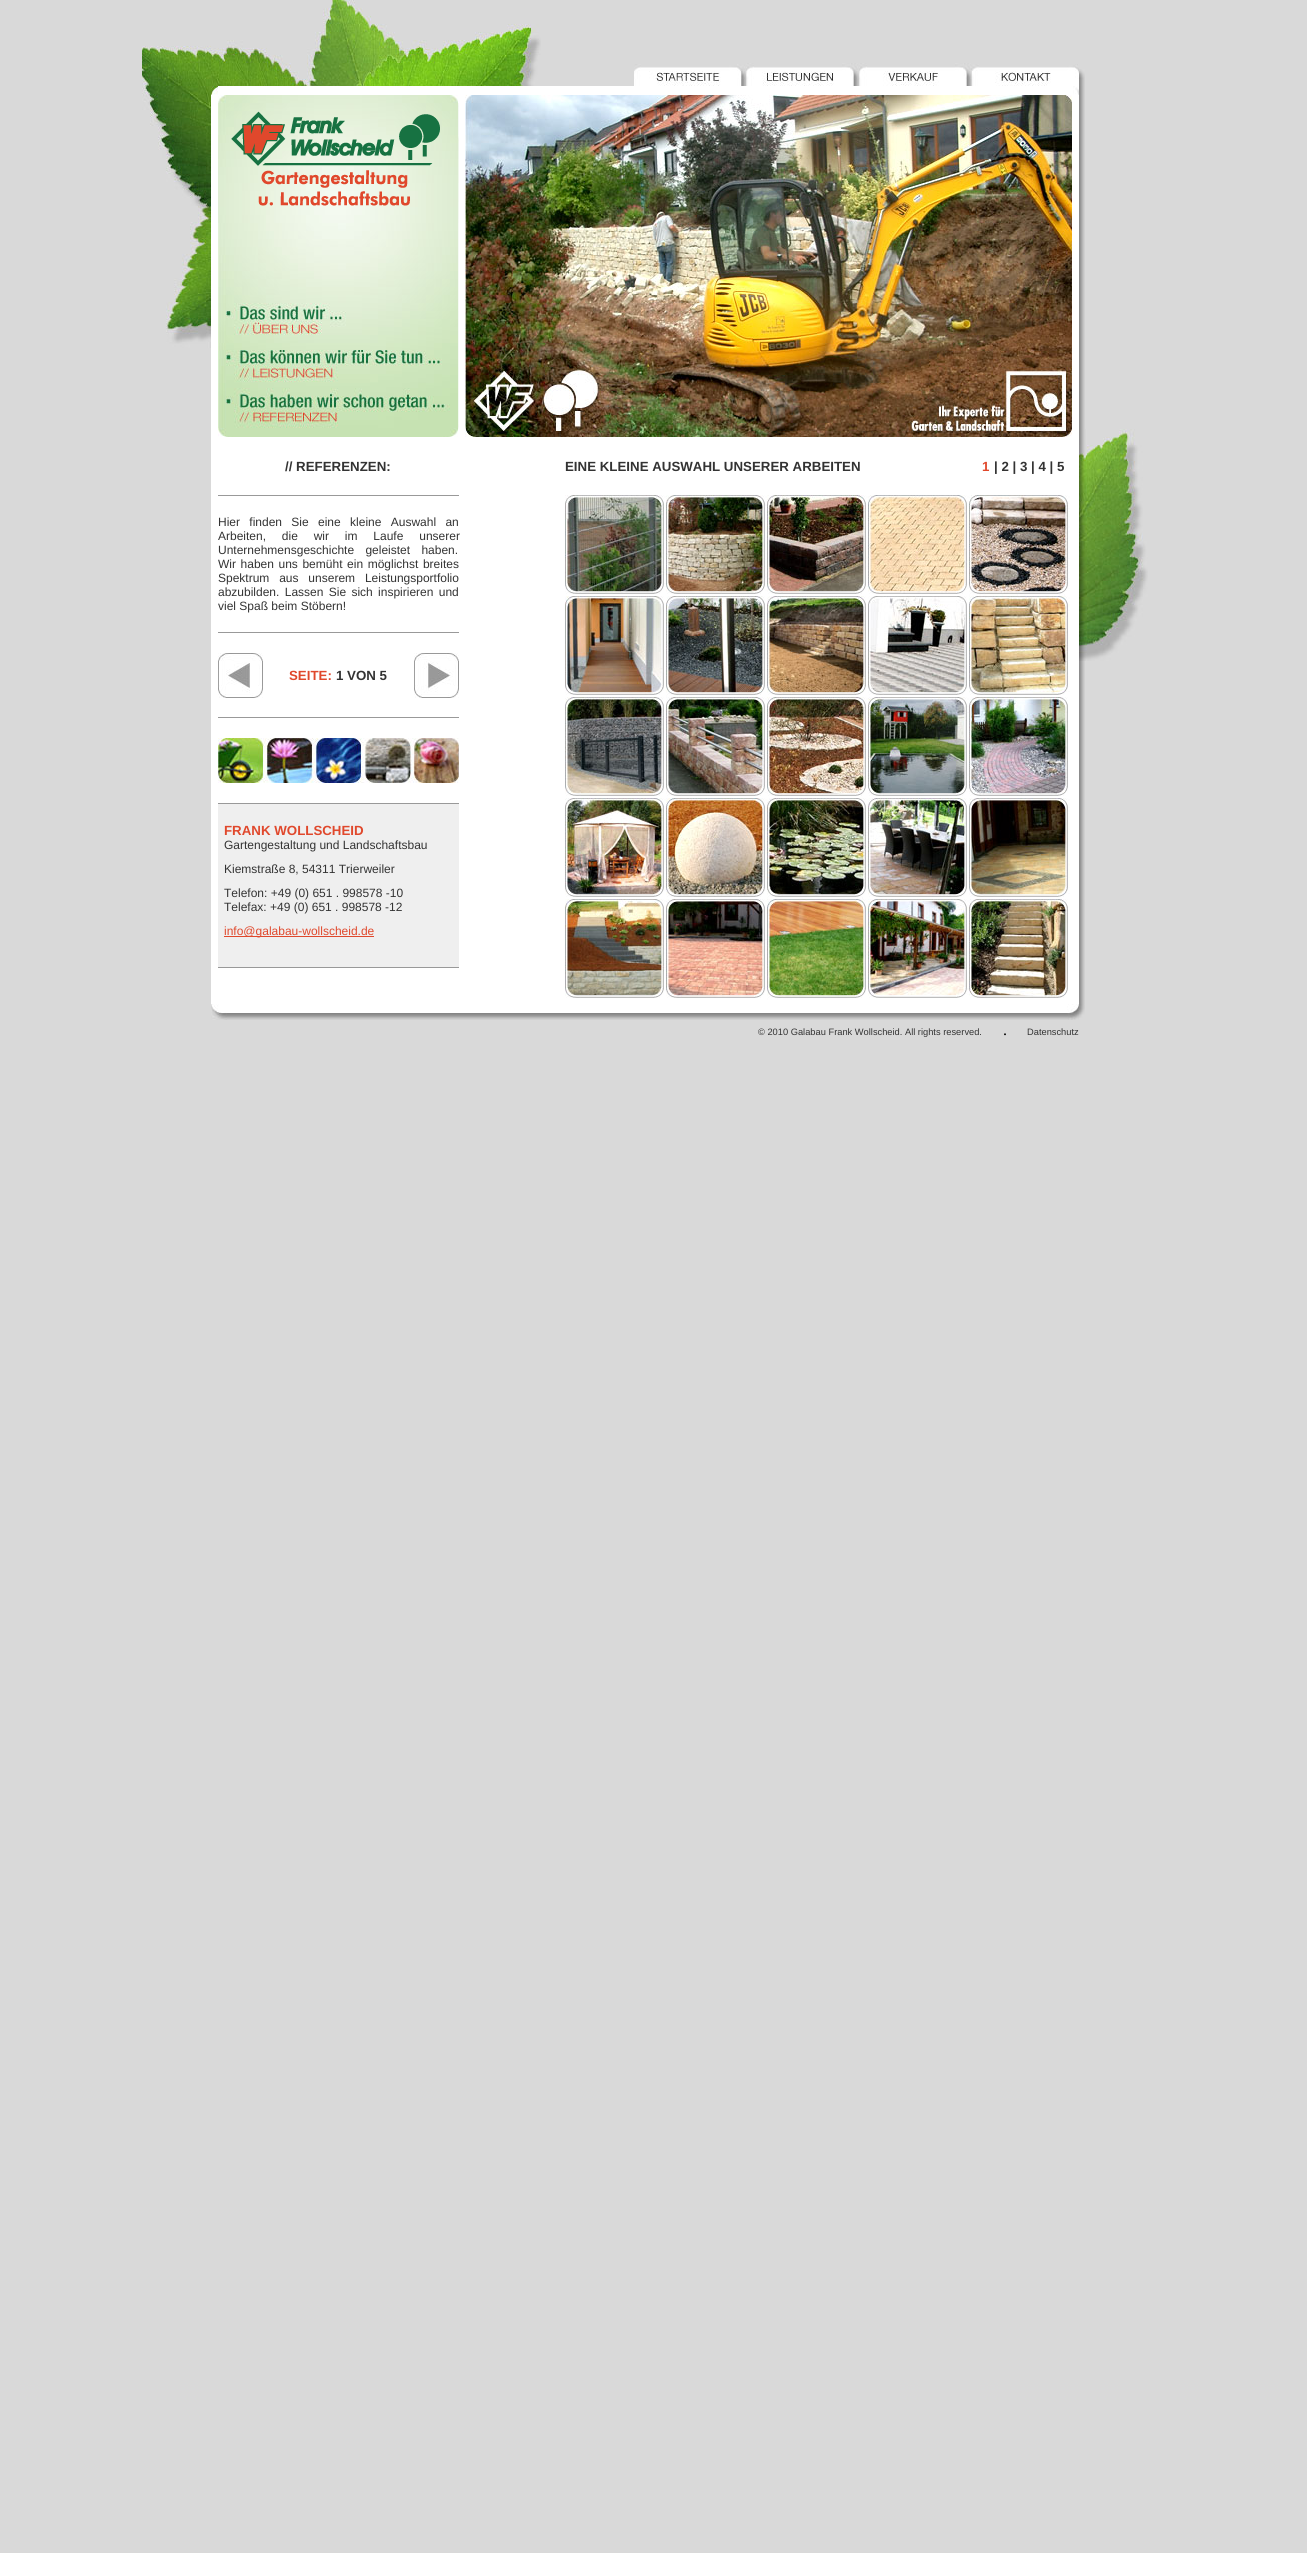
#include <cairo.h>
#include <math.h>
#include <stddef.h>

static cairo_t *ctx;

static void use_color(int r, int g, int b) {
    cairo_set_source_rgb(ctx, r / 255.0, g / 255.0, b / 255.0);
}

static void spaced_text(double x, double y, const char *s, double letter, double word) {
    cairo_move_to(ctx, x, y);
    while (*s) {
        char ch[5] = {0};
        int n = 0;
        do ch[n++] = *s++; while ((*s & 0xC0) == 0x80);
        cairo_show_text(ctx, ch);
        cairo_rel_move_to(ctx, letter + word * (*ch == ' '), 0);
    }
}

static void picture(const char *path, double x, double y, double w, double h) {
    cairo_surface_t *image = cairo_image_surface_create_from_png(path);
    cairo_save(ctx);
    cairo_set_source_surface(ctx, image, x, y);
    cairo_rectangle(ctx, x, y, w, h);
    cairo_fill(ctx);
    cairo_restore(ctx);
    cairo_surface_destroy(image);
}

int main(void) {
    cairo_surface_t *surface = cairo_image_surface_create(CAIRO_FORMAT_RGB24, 1307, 2553);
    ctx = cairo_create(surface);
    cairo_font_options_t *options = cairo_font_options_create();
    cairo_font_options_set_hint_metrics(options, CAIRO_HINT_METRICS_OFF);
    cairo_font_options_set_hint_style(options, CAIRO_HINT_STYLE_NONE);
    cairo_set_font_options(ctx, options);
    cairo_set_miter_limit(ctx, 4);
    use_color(217, 217, 217);
    cairo_paint(ctx);
    picture("img1.png", 142, 46, 69, 9);
    picture("img2.png", 211, 0, 330, 55);
    picture("img3.png", 142, 55, 69, 31);
    picture("img4.png", 211, 55, 327, 31);
    picture("img5.png", 634, 64, 112, 22);
    picture("img6.png", 746, 63, 113, 23);
    picture("img7.png", 859, 63, 112, 23);
    picture("img8.png", 971, 64, 108, 22);
    picture("img9.png", 1079, 69, 6, 17);
    picture("img10.png", 142, 86, 69, 262);
    use_color(255, 255, 255);
    cairo_rectangle(ctx, 211, 86, 868, 918);
    cairo_fill(ctx);
    picture("img11.png", 211, 86, 7, 9);
    picture("img12.png", 1073, 86, 6, 9);
    picture("img13.png", 218, 95, 241, 342);
    picture("img14.png", 231, 111, 209, 95);
    picture("img15.png", 226, 303, 120, 32);
    picture("img16.png", 221, 350, 221, 32);
    picture("img17.png", 218, 388, 240, 49);
    picture("img18.png", 465, 95, 607, 342);
    cairo_select_font_face(ctx, "Liberation Sans", CAIRO_FONT_SLANT_NORMAL, CAIRO_FONT_WEIGHT_BOLD);
    cairo_set_font_size(ctx, 13.3);
    use_color(51, 51, 51);
    cairo_move_to(ctx, 285, 471);
    cairo_show_text(ctx, "// REFERENZEN:");
    cairo_move_to(ctx, 565, 471);
    cairo_show_text(ctx, "EINE KLEINE AUSWAHL UNSERER ARBEITEN");
    use_color(224, 72, 44);
    cairo_move_to(ctx, 982, 471);
    cairo_show_text(ctx, "1");
    use_color(51, 51, 51);
    cairo_move_to(ctx, 994, 471);
    cairo_show_text(ctx, "| 2 | 3 | 4 | 5");
    use_color(153, 153, 153);
    cairo_rectangle(ctx, 218, 495, 241, 1);
    cairo_fill(ctx);
    cairo_select_font_face(ctx, "Liberation Sans", CAIRO_FONT_SLANT_NORMAL, CAIRO_FONT_WEIGHT_NORMAL);
    cairo_set_font_size(ctx, 12);
    use_color(51, 51, 51);
    spaced_text(218, 526, "Hier finden Sie eine kleine Auswahl an", 0, 6);
    spaced_text(218, 540, "Arbeiten, die wir im Laufe unserer", 0, 12.5);
    spaced_text(218, 554, "Unternehmensgeschichte geleistet haben.", 0, 8);
    spaced_text(218, 568, "Wir haben uns bemüht ein möglichst breites", 0, 1.25);
    spaced_text(218, 582, "Spektrum aus unserem Leistungsportfolio", 0, 6.5);
    spaced_text(218, 596, "abzubilden. Lassen Sie sich inspirieren und", 0, 2);
    cairo_move_to(ctx, 218, 610);
    cairo_show_text(ctx, "viel Spaß beim Stöbern!");
    use_color(153, 153, 153);
    cairo_rectangle(ctx, 218, 632, 241, 1);
    cairo_fill(ctx);
    picture("img19.png", 218, 653, 45, 45);
    cairo_select_font_face(ctx, "Liberation Sans", CAIRO_FONT_SLANT_NORMAL, CAIRO_FONT_WEIGHT_BOLD);
    cairo_set_font_size(ctx, 13.3);
    use_color(224, 72, 44);
    cairo_move_to(ctx, 289, 680);
    cairo_show_text(ctx, "SEITE:");
    use_color(51, 51, 51);
    cairo_move_to(ctx, 336, 680);
    cairo_show_text(ctx, "1 VON 5");
    picture("img20.png", 414, 653, 45, 45);
    use_color(153, 153, 153);
    cairo_rectangle(ctx, 218, 717, 241, 1);
    cairo_fill(ctx);
    picture("img21.png", 218, 738, 241, 45);
    use_color(239, 239, 239);
    cairo_rectangle(ctx, 218, 804, 241, 163);
    cairo_fill(ctx);
    use_color(153, 153, 153);
    cairo_rectangle(ctx, 218, 803, 241, 1);
    cairo_fill(ctx);
    use_color(224, 72, 44);
    cairo_move_to(ctx, 224, 835);
    cairo_show_text(ctx, "FRANK WOLLSCHEID");
    cairo_select_font_face(ctx, "Liberation Sans", CAIRO_FONT_SLANT_NORMAL, CAIRO_FONT_WEIGHT_NORMAL);
    cairo_set_font_size(ctx, 12);
    use_color(51, 51, 51);
    cairo_move_to(ctx, 224, 849);
    cairo_show_text(ctx, "Gartengestaltung und Landschaftsbau");
    cairo_move_to(ctx, 224, 873);
    cairo_show_text(ctx, "Kiemstraße 8, 54311 Trierweiler");
    cairo_move_to(ctx, 224, 897);
    cairo_show_text(ctx, "Telefon: +49 (0) 651 . 998578 -10");
    cairo_move_to(ctx, 224, 911);
    cairo_show_text(ctx, "Telefax: +49 (0) 651 . 998578 -12");
    use_color(224, 72, 44);
    cairo_rectangle(ctx, 224, 936, 150, 1);
    cairo_fill(ctx);
    cairo_move_to(ctx, 224, 935);
    cairo_show_text(ctx, "info@galabau-wollscheid.de");
    use_color(153, 153, 153);
    cairo_rectangle(ctx, 218, 967, 241, 1);
    cairo_fill(ctx);
    picture("img22.png", 565, 495, 101, 99);
    picture("img23.png", 666, 495, 101, 99);
    picture("img24.png", 767, 495, 101, 99);
    picture("img25.png", 868, 495, 101, 99);
    picture("img26.png", 969, 495, 101, 101);
    picture("img27.png", 565, 596, 99, 99);
    picture("img28.png", 666, 596, 99, 101);
    picture("img29.png", 767, 596, 99, 99);
    picture("img30.png", 868, 596, 99, 99);
    picture("img31.png", 969, 596, 101, 99);
    picture("img32.png", 565, 697, 99, 99);
    picture("img33.png", 666, 697, 101, 99);
    picture("img34.png", 767, 697, 101, 99);
    picture("img35.png", 868, 697, 101, 99);
    picture("img36.png", 969, 697, 99, 99);
    picture("img37.png", 565, 798, 101, 99);
    picture("img38.png", 666, 798, 101, 99);
    picture("img39.png", 767, 798, 101, 101);
    picture("img40.png", 868, 798, 99, 99);
    picture("img41.png", 969, 798, 101, 99);
    picture("img42.png", 565, 899, 101, 99);
    picture("img43.png", 666, 899, 101, 99);
    picture("img44.png", 767, 899, 101, 101);
    picture("img45.png", 868, 899, 101, 99);
    picture("img46.png", 969, 899, 99, 99);
    picture("img47.png", 1079, 86, 6, 918);
    picture("img48.png", 1079, 429, 69, 232);
    picture("img49.png", 211, 1004, 868, 16);
    picture("img50.png", 1079, 1004, 6, 14);
    cairo_set_font_size(ctx, 9.3);
    use_color(51, 51, 51);
    cairo_move_to(ctx, 758, 1035);
    cairo_show_text(ctx, "© 2010 Galabau Frank Wollscheid. All rights reserved.");
    cairo_select_font_face(ctx, "Liberation Serif", CAIRO_FONT_SLANT_NORMAL, CAIRO_FONT_WEIGHT_NORMAL);
    cairo_set_font_size(ctx, 16);
    use_color(0, 0, 0);
    cairo_move_to(ctx, 1003, 1035);
    cairo_show_text(ctx, ".");
    cairo_select_font_face(ctx, "Liberation Sans", CAIRO_FONT_SLANT_NORMAL, CAIRO_FONT_WEIGHT_NORMAL);
    cairo_set_font_size(ctx, 9.3);
    use_color(51, 51, 51);
    cairo_move_to(ctx, 1027, 1035);
    cairo_show_text(ctx, "Datenschutz");
    cairo_surface_write_to_png(surface, "result.png");
    cairo_font_options_destroy(options);
    cairo_destroy(ctx);
    cairo_surface_destroy(surface);
    return 0;
}
